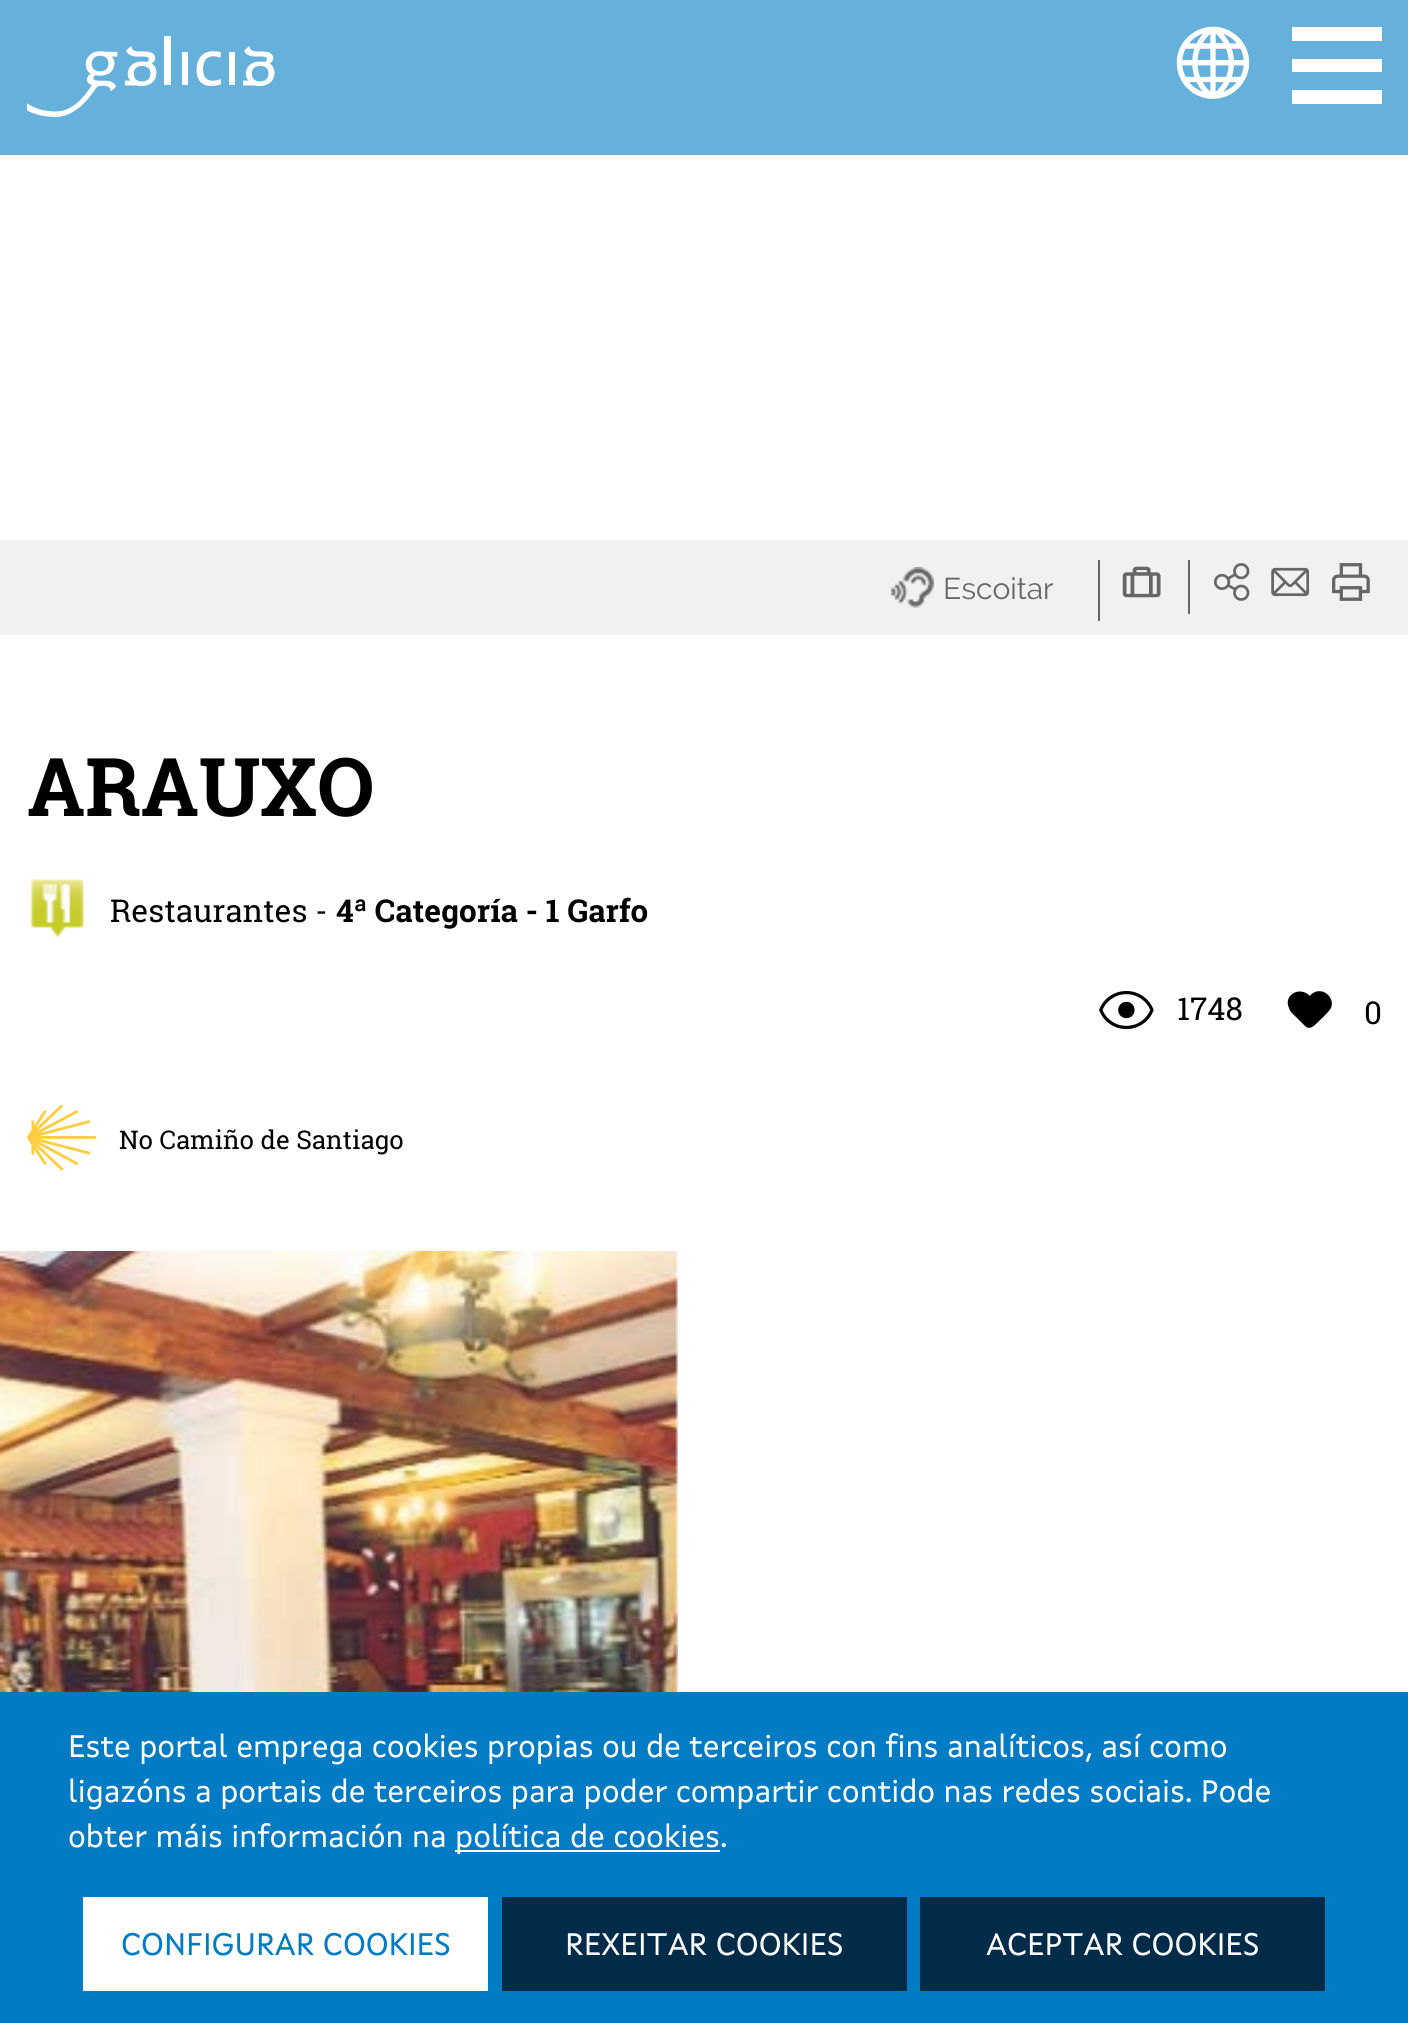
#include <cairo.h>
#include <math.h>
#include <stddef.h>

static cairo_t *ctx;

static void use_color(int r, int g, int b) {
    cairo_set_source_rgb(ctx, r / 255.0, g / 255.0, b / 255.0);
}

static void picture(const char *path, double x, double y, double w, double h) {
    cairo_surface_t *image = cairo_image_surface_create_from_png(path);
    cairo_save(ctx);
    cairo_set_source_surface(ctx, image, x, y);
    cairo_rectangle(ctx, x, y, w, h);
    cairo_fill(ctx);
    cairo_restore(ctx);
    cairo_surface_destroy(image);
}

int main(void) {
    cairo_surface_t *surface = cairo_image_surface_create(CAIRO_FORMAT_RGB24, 1408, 2023);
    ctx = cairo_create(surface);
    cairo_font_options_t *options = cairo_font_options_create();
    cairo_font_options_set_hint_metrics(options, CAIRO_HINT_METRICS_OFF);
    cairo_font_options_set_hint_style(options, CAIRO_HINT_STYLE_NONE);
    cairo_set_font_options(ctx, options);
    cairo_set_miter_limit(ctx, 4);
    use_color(255, 255, 255);
    cairo_paint(ctx);
    use_color(102, 176, 220);
    cairo_rectangle(ctx, 0, 0, 1408, 155);
    cairo_fill(ctx);
    picture("img1.png", 27, 36, 248, 81);
    picture("img2.png", 1176, 26, 74, 73);
    use_color(255, 255, 255);
    cairo_rectangle(ctx, 1292, 27, 90, 14);
    cairo_fill(ctx);
    cairo_rectangle(ctx, 1292, 59, 90, 13);
    cairo_fill(ctx);
    cairo_rectangle(ctx, 1292, 90, 90, 14);
    cairo_fill(ctx);
    use_color(241, 241, 241);
    cairo_rectangle(ctx, 0, 540, 1408, 95);
    cairo_fill(ctx);
    use_color(102, 102, 102);
    cairo_rectangle(ctx, 1098, 560, 2, 61);
    cairo_fill(ctx);
    picture("img3.png", 891, 567, 43, 41);
    cairo_select_font_face(ctx, "Raleway", CAIRO_FONT_SLANT_NORMAL, CAIRO_FONT_WEIGHT_NORMAL);
    cairo_set_font_size(ctx, 30);
    cairo_move_to(ctx, 943, 599);
    cairo_show_text(ctx, "Escoitar");
    cairo_rectangle(ctx, 1188, 560, 2, 54);
    cairo_fill(ctx);
    picture("img4.png", 1122, 566, 39, 32);
    picture("img5.png", 1214, 563, 36, 38);
    picture("img6.png", 1271, 567, 39, 30);
    picture("img7.png", 1332, 563, 38, 38);
    cairo_select_font_face(ctx, "Roboto Slab", CAIRO_FONT_SLANT_NORMAL, CAIRO_FONT_WEIGHT_BOLD);
    cairo_set_font_size(ctx, 81);
    use_color(0, 0, 0);
    cairo_move_to(ctx, 27, 816);
    cairo_show_text(ctx, "ARAUXO");
    picture("img8.png", 31, 879, 53, 58);
    cairo_select_font_face(ctx, "Roboto Slab", CAIRO_FONT_SLANT_NORMAL, CAIRO_FONT_WEIGHT_NORMAL);
    cairo_set_font_size(ctx, 31.5);
    cairo_move_to(ctx, 110, 922);
    cairo_show_text(ctx, "Restaurantes -");
    cairo_select_font_face(ctx, "Roboto Slab", CAIRO_FONT_SLANT_NORMAL, CAIRO_FONT_WEIGHT_BOLD);
    cairo_move_to(ctx, 336, 922);
    cairo_show_text(ctx, "4ª Categoría - 1 Garfo");
    picture("img9.png", 1099, 991, 55, 39);
    cairo_select_font_face(ctx, "Roboto Slab", CAIRO_FONT_SLANT_NORMAL, CAIRO_FONT_WEIGHT_NORMAL);
    cairo_move_to(ctx, 1177, 1020);
    cairo_show_text(ctx, "1748");
    cairo_new_path(ctx);
    cairo_move_to(ctx, 1305, 1026);
    cairo_curve_to(ctx, 1309, 1030, 1313, 1027, 1317, 1023);
    cairo_curve_to(ctx, 1320, 1020, 1328, 1013, 1331, 1008);
    cairo_curve_to(ctx, 1335, 999, 1325, 988, 1315, 992);
    cairo_curve_to(ctx, 1313, 993, 1311, 994, 1310, 996);
    cairo_curve_to(ctx, 1299, 985, 1283, 996, 1289, 1008);
    cairo_curve_to(ctx, 1290, 1012, 1293, 1014, 1296, 1017);
    cairo_close_path(ctx);
    cairo_fill(ctx);
    cairo_move_to(ctx, 1364, 1024);
    cairo_show_text(ctx, "0");
    picture("img10.png", 27, 1105, 70, 66);
    cairo_set_font_size(ctx, 25.75);
    cairo_move_to(ctx, 119, 1149);
    cairo_show_text(ctx, "No Camiño de Santiago");
    picture("img11.png", 0, 1251, 678, 441);
    use_color(0, 123, 196);
    cairo_rectangle(ctx, 0, 1692, 1408, 331);
    cairo_fill(ctx);
    cairo_select_font_face(ctx, "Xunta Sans", CAIRO_FONT_SLANT_NORMAL, CAIRO_FONT_WEIGHT_NORMAL);
    cairo_set_font_size(ctx, 31.5);
    use_color(255, 255, 255);
    cairo_move_to(ctx, 68, 1757);
    cairo_show_text(ctx, "Este portal emprega cookies propias ou de terceiros con fins analíticos, así como");
    cairo_move_to(ctx, 68, 1802);
    cairo_show_text(ctx, "ligazóns a portais de terceiros para poder compartir contido nas redes sociais. Pode");
    cairo_move_to(ctx, 68, 1847);
    cairo_show_text(ctx, "obter máis información na");
    cairo_rectangle(ctx, 455, 1850, 265, 2);
    cairo_fill(ctx);
    cairo_move_to(ctx, 455, 1847);
    cairo_show_text(ctx, "política de cookies.");
    cairo_rectangle(ctx, 83, 1897, 405, 94);
    cairo_fill(ctx);
    use_color(0, 123, 196);
    cairo_move_to(ctx, 121, 1955);
    cairo_show_text(ctx, "CONFIGURAR COOKIES");
    use_color(0, 43, 73);
    cairo_rectangle(ctx, 502, 1897, 405, 94);
    cairo_fill(ctx);
    use_color(255, 255, 255);
    cairo_move_to(ctx, 565, 1955);
    cairo_show_text(ctx, "REXEITAR COOKIES");
    use_color(0, 43, 73);
    cairo_rectangle(ctx, 920, 1897, 405, 94);
    cairo_fill(ctx);
    use_color(255, 255, 255);
    cairo_move_to(ctx, 986, 1955);
    cairo_show_text(ctx, "ACEPTAR COOKIES");
    cairo_surface_write_to_png(surface, "result.png");
    cairo_font_options_destroy(options);
    cairo_destroy(ctx);
    cairo_surface_destroy(surface);
    return 0;
}
